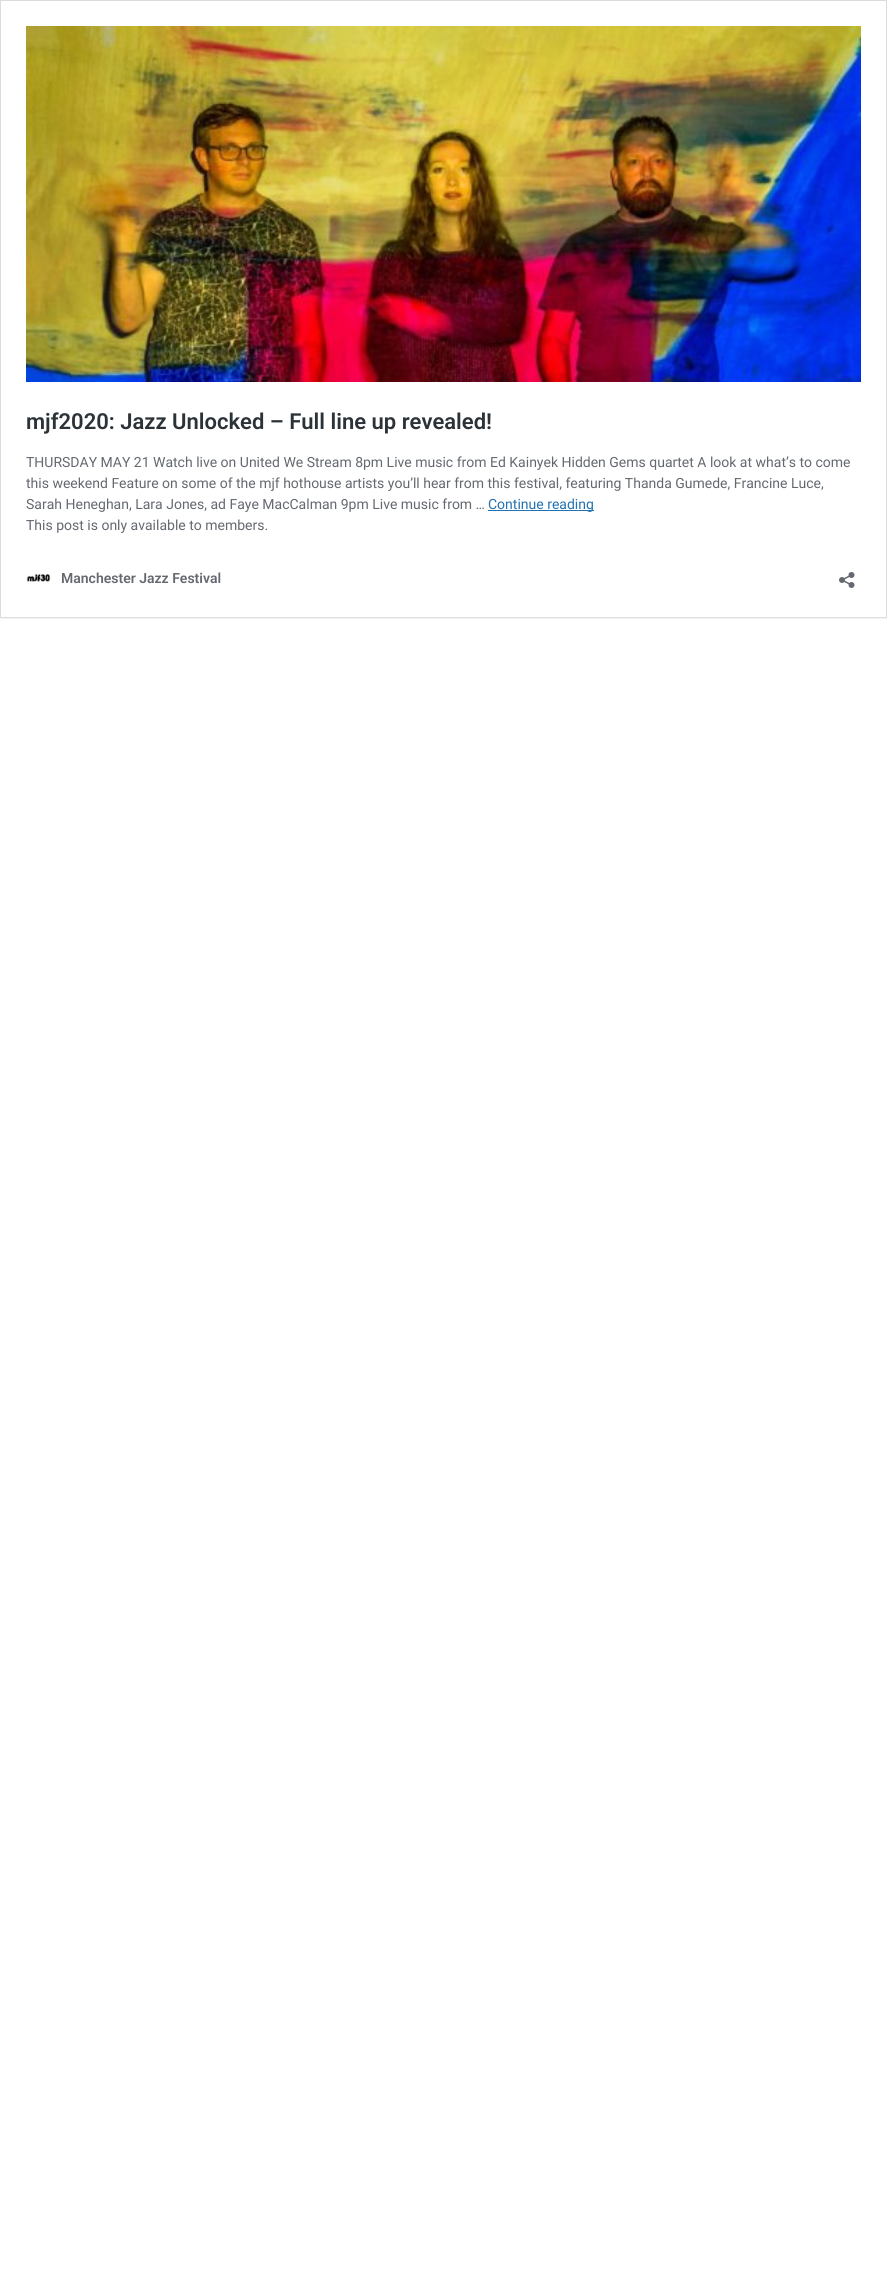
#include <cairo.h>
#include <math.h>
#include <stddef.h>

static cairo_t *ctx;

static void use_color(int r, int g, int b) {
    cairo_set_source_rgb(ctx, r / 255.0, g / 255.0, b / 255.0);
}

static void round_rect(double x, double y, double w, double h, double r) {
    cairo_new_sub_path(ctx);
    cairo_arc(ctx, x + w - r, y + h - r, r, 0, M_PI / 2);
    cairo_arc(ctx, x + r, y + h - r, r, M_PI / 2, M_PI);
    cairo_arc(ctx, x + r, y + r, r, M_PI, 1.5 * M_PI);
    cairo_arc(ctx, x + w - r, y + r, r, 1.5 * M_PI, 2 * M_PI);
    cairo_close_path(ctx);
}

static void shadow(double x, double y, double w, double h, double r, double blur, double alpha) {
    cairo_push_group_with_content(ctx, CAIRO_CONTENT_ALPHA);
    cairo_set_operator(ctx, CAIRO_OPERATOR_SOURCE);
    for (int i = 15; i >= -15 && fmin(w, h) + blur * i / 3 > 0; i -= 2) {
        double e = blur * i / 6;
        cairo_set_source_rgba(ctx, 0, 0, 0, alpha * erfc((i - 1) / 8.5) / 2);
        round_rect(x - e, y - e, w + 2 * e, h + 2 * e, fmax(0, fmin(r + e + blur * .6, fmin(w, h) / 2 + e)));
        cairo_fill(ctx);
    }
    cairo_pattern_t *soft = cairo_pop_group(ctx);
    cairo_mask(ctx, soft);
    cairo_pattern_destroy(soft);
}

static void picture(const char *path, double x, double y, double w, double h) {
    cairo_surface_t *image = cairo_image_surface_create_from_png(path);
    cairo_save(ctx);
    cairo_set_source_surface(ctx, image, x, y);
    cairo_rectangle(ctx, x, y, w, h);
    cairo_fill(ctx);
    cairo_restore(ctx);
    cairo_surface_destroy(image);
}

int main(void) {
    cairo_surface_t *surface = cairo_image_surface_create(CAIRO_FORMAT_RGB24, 887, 2270);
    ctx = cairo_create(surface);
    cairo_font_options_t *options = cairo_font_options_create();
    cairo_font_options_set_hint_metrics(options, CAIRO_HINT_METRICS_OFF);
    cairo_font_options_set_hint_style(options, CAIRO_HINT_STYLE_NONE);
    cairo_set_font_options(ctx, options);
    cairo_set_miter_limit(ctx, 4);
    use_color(255, 255, 255);
    cairo_paint(ctx);
    cairo_save(ctx);
    cairo_rectangle(ctx, 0, 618, 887, 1);
    cairo_clip(ctx);
    use_color(0, 0, 0);
    shadow(0, 1, 887, 618, 0, 0.5, 0.05);
    cairo_restore(ctx);
    cairo_rectangle(ctx, 0.5, 0.5, 886, 617);
    use_color(220, 220, 222);
    cairo_set_line_width(ctx, 1);
    cairo_stroke(ctx);
    picture("img1.png", 26, 26, 835, 356);
    cairo_select_font_face(ctx, "Roboto SemiBold", CAIRO_FONT_SLANT_NORMAL, CAIRO_FONT_WEIGHT_NORMAL);
    cairo_set_font_size(ctx, 22);
    use_color(44, 51, 56);
    cairo_move_to(ctx, 26, 429);
    cairo_show_text(ctx, "mjf2020: Jazz Unlocked – Full line up revealed!");
    cairo_select_font_face(ctx, "Roboto", CAIRO_FONT_SLANT_NORMAL, CAIRO_FONT_WEIGHT_NORMAL);
    cairo_set_font_size(ctx, 14);
    use_color(100, 105, 112);
    cairo_move_to(ctx, 26, 467);
    cairo_show_text(ctx, "THURSDAY MAY 21 Watch live on United We Stream 8pm Live music from Ed Kainyek Hidden Gems quartet A look at what’s to come");
    cairo_move_to(ctx, 26, 488);
    cairo_show_text(ctx, "this weekend Feature on some of the mjf hothouse artists you’ll hear from this festival, featuring Thanda Gumede, Francine Luce,");
    cairo_move_to(ctx, 26, 509);
    cairo_show_text(ctx, "Sarah Heneghan, Lara Jones, ad Faye MacCalman 9pm Live music from …");
    use_color(34, 113, 177);
    cairo_rectangle(ctx, 488, 510, 106, 1);
    cairo_fill(ctx);
    cairo_move_to(ctx, 488, 509);
    cairo_show_text(ctx, "Continue reading");
    use_color(100, 105, 112);
    cairo_move_to(ctx, 26, 530);
    cairo_show_text(ctx, "This post is only available to members.");
    picture("img2.png", 26, 574, 25, 8);
    cairo_select_font_face(ctx, "Roboto SemiBold", CAIRO_FONT_SLANT_NORMAL, CAIRO_FONT_WEIGHT_NORMAL);
    cairo_move_to(ctx, 61, 583);
    cairo_show_text(ctx, "Manchester Jazz Festival");
    picture("img3.png", 839, 572, 16, 16);
    cairo_surface_write_to_png(surface, "result.png");
    cairo_font_options_destroy(options);
    cairo_destroy(ctx);
    cairo_surface_destroy(surface);
    return 0;
}
